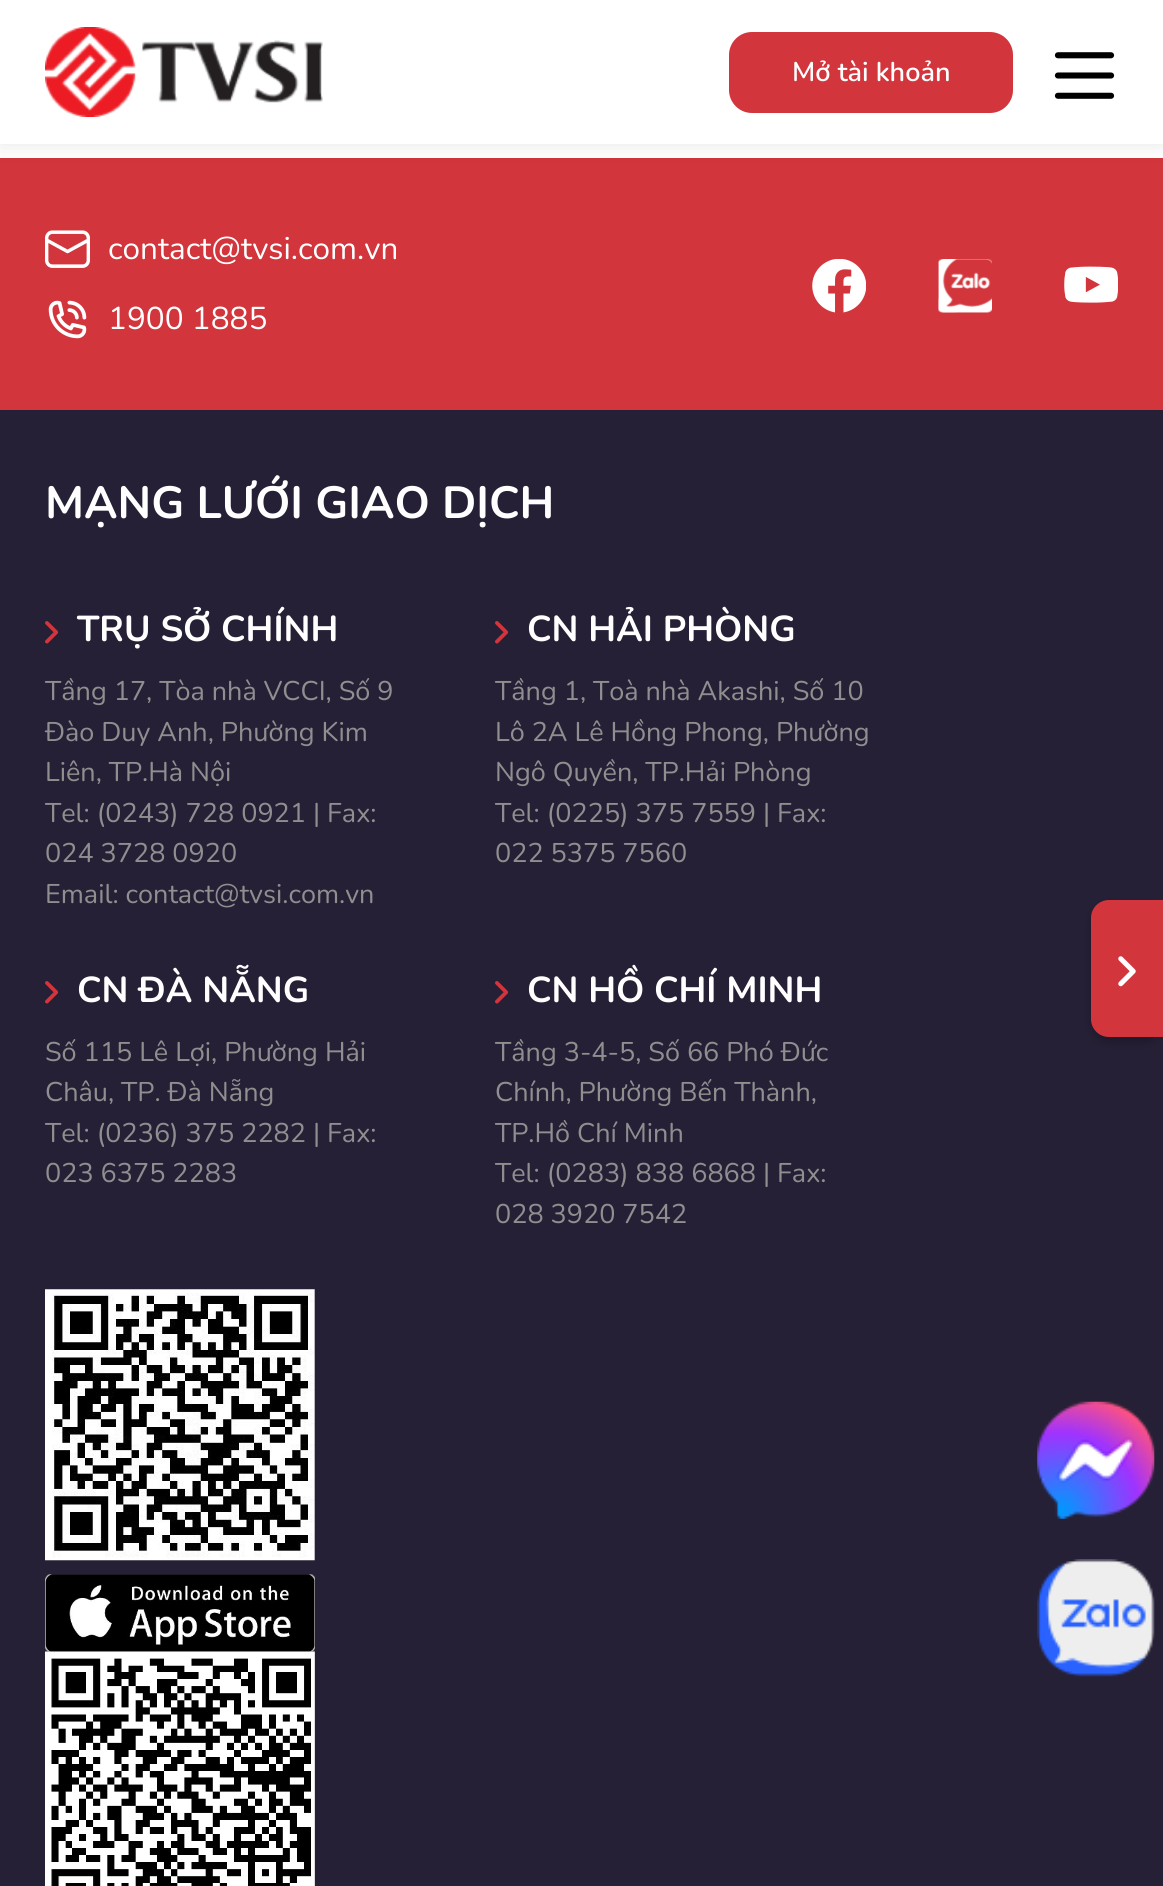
#include <cairo.h>
#include <math.h>
#include <stddef.h>

static cairo_t *ctx;

static void use_color(int r, int g, int b) {
    cairo_set_source_rgb(ctx, r / 255.0, g / 255.0, b / 255.0);
}

static void round_rect(double x, double y, double w, double h, double r) {
    cairo_new_sub_path(ctx);
    cairo_arc(ctx, x + w - r, y + h - r, r, 0, M_PI / 2);
    cairo_arc(ctx, x + r, y + h - r, r, M_PI / 2, M_PI);
    cairo_arc(ctx, x + r, y + r, r, M_PI, 1.5 * M_PI);
    cairo_arc(ctx, x + w - r, y + r, r, 1.5 * M_PI, 2 * M_PI);
    cairo_close_path(ctx);
}

static void shadow(double x, double y, double w, double h, double r, double blur, double alpha) {
    cairo_push_group_with_content(ctx, CAIRO_CONTENT_ALPHA);
    cairo_set_operator(ctx, CAIRO_OPERATOR_SOURCE);
    for (int i = 15; i >= -15 && fmin(w, h) + blur * i / 3 > 0; i -= 2) {
        double e = blur * i / 6;
        cairo_set_source_rgba(ctx, 0, 0, 0, alpha * erfc((i - 1) / 8.5) / 2);
        round_rect(x - e, y - e, w + 2 * e, h + 2 * e, fmax(0, fmin(r + e + blur * .6, fmin(w, h) / 2 + e)));
        cairo_fill(ctx);
    }
    cairo_pattern_t *soft = cairo_pop_group(ctx);
    cairo_mask(ctx, soft);
    cairo_pattern_destroy(soft);
}

static void picture(const char *path, double x, double y, double w, double h) {
    cairo_surface_t *image = cairo_image_surface_create_from_png(path);
    cairo_save(ctx);
    cairo_set_source_surface(ctx, image, x, y);
    cairo_rectangle(ctx, x, y, w, h);
    cairo_fill(ctx);
    cairo_restore(ctx);
    cairo_surface_destroy(image);
}

int main(void) {
    cairo_surface_t *surface = cairo_image_surface_create(CAIRO_FORMAT_RGB24, 1163, 1886);
    ctx = cairo_create(surface);
    cairo_font_options_t *options = cairo_font_options_create();
    cairo_font_options_set_hint_metrics(options, CAIRO_HINT_METRICS_OFF);
    cairo_font_options_set_hint_style(options, CAIRO_HINT_STYLE_NONE);
    cairo_set_font_options(ctx, options);
    cairo_set_miter_limit(ctx, 4);
    use_color(255, 255, 255);
    cairo_paint(ctx);
    use_color(210, 53, 59);
    cairo_rectangle(ctx, 0, 158, 1163, 252);
    cairo_fill(ctx);
    use_color(0, 0, 0);
    shadow(0, 0, 1163, 144, 0, 11, 0.1);
    use_color(255, 255, 255);
    cairo_rectangle(ctx, 0, 0, 1163, 144);
    cairo_fill(ctx);
    picture("img1.png", 45, 27, 278, 90);
    use_color(210, 53, 59);
    round_rect(729, 32, 284, 81, 23);
    cairo_fill(ctx);
    cairo_select_font_face(ctx, "Nunito SemiBold", CAIRO_FONT_SLANT_NORMAL, CAIRO_FONT_WEIGHT_NORMAL);
    cairo_set_font_size(ctx, 27);
    use_color(255, 255, 255);
    cairo_move_to(ctx, 792, 81);
    cairo_show_text(ctx, "Mở tài khoản");
    picture("img2.png", 1054, 52, 61, 47);
    picture("img3.png", 45, 230, 45, 38);
    cairo_select_font_face(ctx, "Nunito", CAIRO_FONT_SLANT_NORMAL, CAIRO_FONT_WEIGHT_NORMAL);
    cairo_set_font_size(ctx, 31.5);
    cairo_move_to(ctx, 108, 259);
    cairo_show_text(ctx, "contact@tvsi.com.vn");
    picture("img4.png", 48, 300, 39, 39);
    cairo_move_to(ctx, 108, 329);
    cairo_show_text(ctx, "1900 1885");
    picture("img5.png", 812, 259, 54, 54);
    picture("img6.png", 938, 259, 54, 54);
    picture("img7.png", 1064, 266, 54, 37);
    use_color(38, 32, 54);
    cairo_rectangle(ctx, 0, 410, 1163, 1476);
    cairo_fill(ctx);
    cairo_select_font_face(ctx, "Nunito", CAIRO_FONT_SLANT_NORMAL, CAIRO_FONT_WEIGHT_BOLD);
    cairo_set_font_size(ctx, 45);
    use_color(255, 255, 255);
    cairo_move_to(ctx, 45, 518);
    cairo_show_text(ctx, "MẠNG LƯỚI GIAO DỊCH");
    picture("img8.png", 45, 621, 14, 23);
    cairo_set_font_size(ctx, 36);
    cairo_move_to(ctx, 77, 641);
    cairo_show_text(ctx, "TRỤ SỞ CHÍNH");
    cairo_select_font_face(ctx, "Nunito", CAIRO_FONT_SLANT_NORMAL, CAIRO_FONT_WEIGHT_NORMAL);
    cairo_set_font_size(ctx, 27);
    use_color(143, 143, 143);
    cairo_move_to(ctx, 45, 700);
    cairo_show_text(ctx, "Tầng 17, Tòa nhà VCCI, Số 9");
    cairo_move_to(ctx, 45, 741);
    cairo_show_text(ctx, "Đào Duy Anh, Phường Kim");
    cairo_move_to(ctx, 45, 781);
    cairo_show_text(ctx, "Liên, TP.Hà Nội");
    cairo_move_to(ctx, 45, 822);
    cairo_show_text(ctx, "Tel: (0243) 728 0921 | Fax:");
    cairo_move_to(ctx, 45, 862);
    cairo_show_text(ctx, "024 3728 0920");
    cairo_move_to(ctx, 45, 903);
    cairo_show_text(ctx, "Email: contact@tvsi.com.vn");
    picture("img8.png", 495, 621, 14, 23);
    cairo_select_font_face(ctx, "Nunito", CAIRO_FONT_SLANT_NORMAL, CAIRO_FONT_WEIGHT_BOLD);
    cairo_set_font_size(ctx, 36);
    use_color(255, 255, 255);
    cairo_move_to(ctx, 527, 641);
    cairo_show_text(ctx, "CN HẢI PHÒNG");
    cairo_select_font_face(ctx, "Nunito", CAIRO_FONT_SLANT_NORMAL, CAIRO_FONT_WEIGHT_NORMAL);
    cairo_set_font_size(ctx, 27);
    use_color(143, 143, 143);
    cairo_move_to(ctx, 495, 700);
    cairo_show_text(ctx, "Tầng 1, Toà nhà Akashi, Số 10");
    cairo_move_to(ctx, 495, 741);
    cairo_show_text(ctx, "Lô 2A Lê Hồng Phong, Phường");
    cairo_move_to(ctx, 495, 781);
    cairo_show_text(ctx, "Ngô Quyền, TP.Hải Phòng");
    cairo_move_to(ctx, 495, 822);
    cairo_show_text(ctx, "Tel: (0225) 375 7559 | Fax:");
    cairo_move_to(ctx, 495, 862);
    cairo_show_text(ctx, "022 5375 7560");
    picture("img8.png", 45, 981, 14, 23);
    cairo_select_font_face(ctx, "Nunito", CAIRO_FONT_SLANT_NORMAL, CAIRO_FONT_WEIGHT_BOLD);
    cairo_set_font_size(ctx, 36);
    use_color(255, 255, 255);
    cairo_move_to(ctx, 77, 1002);
    cairo_show_text(ctx, "CN ĐÀ NẴNG");
    cairo_select_font_face(ctx, "Nunito", CAIRO_FONT_SLANT_NORMAL, CAIRO_FONT_WEIGHT_NORMAL);
    cairo_set_font_size(ctx, 27);
    use_color(143, 143, 143);
    cairo_move_to(ctx, 45, 1061);
    cairo_show_text(ctx, "Số 115 Lê Lợi, Phường Hải");
    cairo_move_to(ctx, 45, 1101);
    cairo_show_text(ctx, "Châu, TP. Đà Nẵng");
    cairo_move_to(ctx, 45, 1142);
    cairo_show_text(ctx, "Tel: (0236) 375 2282 | Fax:");
    cairo_move_to(ctx, 45, 1182);
    cairo_show_text(ctx, "023 6375 2283");
    picture("img8.png", 495, 981, 14, 23);
    cairo_select_font_face(ctx, "Nunito", CAIRO_FONT_SLANT_NORMAL, CAIRO_FONT_WEIGHT_BOLD);
    cairo_set_font_size(ctx, 36);
    use_color(255, 255, 255);
    cairo_move_to(ctx, 527, 1002);
    cairo_show_text(ctx, "CN HỒ CHÍ MINH");
    cairo_select_font_face(ctx, "Nunito", CAIRO_FONT_SLANT_NORMAL, CAIRO_FONT_WEIGHT_NORMAL);
    cairo_set_font_size(ctx, 27);
    use_color(143, 143, 143);
    cairo_move_to(ctx, 495, 1061);
    cairo_show_text(ctx, "Tầng 3-4-5, Số 66 Phó Đức");
    cairo_move_to(ctx, 495, 1101);
    cairo_show_text(ctx, "Chính, Phường Bến Thành,");
    cairo_move_to(ctx, 495, 1142);
    cairo_show_text(ctx, "TP.Hồ Chí Minh");
    cairo_move_to(ctx, 495, 1182);
    cairo_show_text(ctx, "Tel: (0283) 838 6868 | Fax:");
    cairo_move_to(ctx, 495, 1223);
    cairo_show_text(ctx, "028 3920 7542");
    picture("img9.png", 45, 1289, 270, 363);
    picture("img10.png", 45, 1651, 270, 235);
    use_color(0, 0, 0);
    shadow(1091, 905, 72, 137, 18, 4.5, 0.25);
    use_color(210, 53, 59);
    cairo_new_path(ctx);
    cairo_move_to(ctx, 1109, 900);
    cairo_line_to(ctx, 1163, 900);
    cairo_line_to(ctx, 1163, 1037);
    cairo_line_to(ctx, 1109, 1037);
    cairo_curve_to(ctx, 1099, 1037, 1091, 1029, 1091, 1019);
    cairo_line_to(ctx, 1091, 918);
    cairo_curve_to(ctx, 1091, 908, 1099, 900, 1109, 900);
    cairo_close_path(ctx);
    cairo_fill(ctx);
    picture("img11.png", 1118, 956, 18, 31);
    picture("img12.png", 1037, 1401, 118, 118);
    picture("img13.png", 1037, 1559, 118, 118);
    cairo_surface_write_to_png(surface, "result.png");
    cairo_font_options_destroy(options);
    cairo_destroy(ctx);
    cairo_surface_destroy(surface);
    return 0;
}
